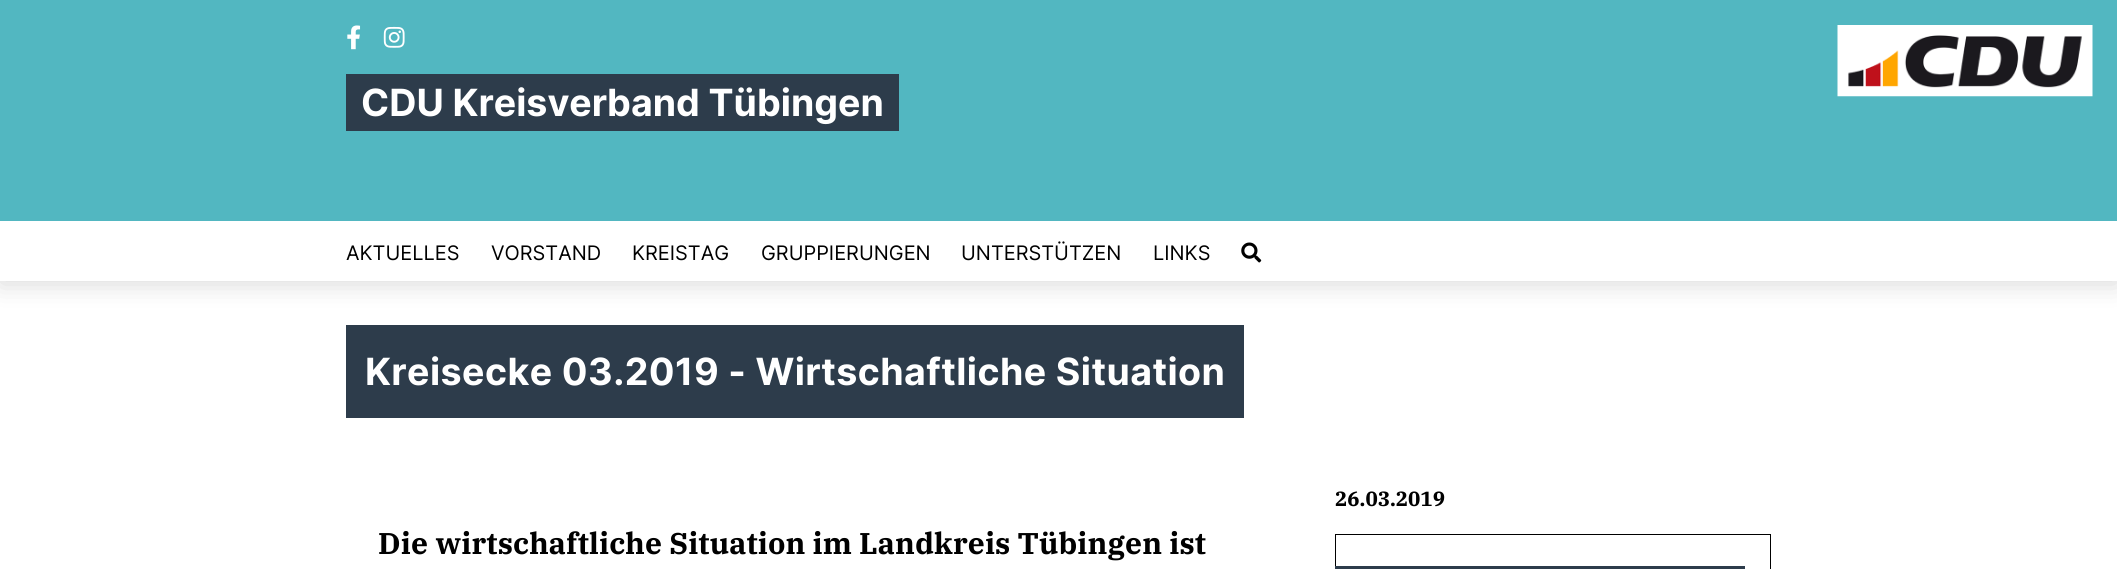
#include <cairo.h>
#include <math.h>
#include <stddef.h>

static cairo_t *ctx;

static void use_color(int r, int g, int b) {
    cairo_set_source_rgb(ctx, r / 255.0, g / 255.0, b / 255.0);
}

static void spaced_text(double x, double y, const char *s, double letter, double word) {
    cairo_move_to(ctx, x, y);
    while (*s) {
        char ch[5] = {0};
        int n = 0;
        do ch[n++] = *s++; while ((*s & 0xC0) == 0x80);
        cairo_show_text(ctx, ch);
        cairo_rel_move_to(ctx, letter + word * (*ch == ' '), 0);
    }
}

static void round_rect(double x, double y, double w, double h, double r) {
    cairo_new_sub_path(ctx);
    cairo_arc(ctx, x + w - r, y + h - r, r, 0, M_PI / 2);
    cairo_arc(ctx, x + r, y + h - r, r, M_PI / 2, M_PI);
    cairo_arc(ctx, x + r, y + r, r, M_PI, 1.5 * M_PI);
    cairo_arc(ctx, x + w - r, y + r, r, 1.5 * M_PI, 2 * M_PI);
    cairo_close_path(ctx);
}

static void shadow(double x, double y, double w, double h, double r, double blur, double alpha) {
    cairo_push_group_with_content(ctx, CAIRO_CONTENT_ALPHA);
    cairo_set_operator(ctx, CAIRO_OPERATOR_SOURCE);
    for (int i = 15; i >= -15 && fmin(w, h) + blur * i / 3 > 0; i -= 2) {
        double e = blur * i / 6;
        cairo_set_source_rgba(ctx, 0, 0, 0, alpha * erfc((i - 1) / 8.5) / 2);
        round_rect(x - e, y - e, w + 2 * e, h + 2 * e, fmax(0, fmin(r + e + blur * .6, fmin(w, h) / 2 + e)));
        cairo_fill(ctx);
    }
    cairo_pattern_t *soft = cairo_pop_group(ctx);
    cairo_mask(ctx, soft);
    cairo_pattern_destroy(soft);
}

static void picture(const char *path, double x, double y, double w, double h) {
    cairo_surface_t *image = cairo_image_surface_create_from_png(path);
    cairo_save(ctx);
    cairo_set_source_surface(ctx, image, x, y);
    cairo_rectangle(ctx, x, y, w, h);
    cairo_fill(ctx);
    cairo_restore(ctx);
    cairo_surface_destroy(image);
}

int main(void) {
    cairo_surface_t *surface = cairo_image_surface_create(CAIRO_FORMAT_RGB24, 2117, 569);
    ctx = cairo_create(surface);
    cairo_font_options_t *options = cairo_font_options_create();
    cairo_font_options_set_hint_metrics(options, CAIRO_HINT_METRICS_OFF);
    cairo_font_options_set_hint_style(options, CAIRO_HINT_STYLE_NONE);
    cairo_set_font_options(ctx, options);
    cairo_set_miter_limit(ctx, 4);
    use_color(255, 255, 255);
    cairo_paint(ctx);
    use_color(0, 0, 0);
    shadow(0, 3, 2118, 281, 0, 13, 0.15);
    use_color(82, 183, 193);
    cairo_rectangle(ctx, 0, 0, 2117, 221);
    cairo_fill(ctx);
    picture("img1.png", 1837, 25, 256, 72);
    picture("img2.png", 347, 25, 14, 25);
    picture("img3.png", 383, 26, 22, 22);
    use_color(45, 60, 75);
    cairo_rectangle(ctx, 346, 74, 553, 57);
    cairo_fill(ctx);
    cairo_select_font_face(ctx, "Inter", CAIRO_FONT_SLANT_NORMAL, CAIRO_FONT_WEIGHT_BOLD);
    cairo_set_font_size(ctx, 37.5);
    use_color(255, 255, 255);
    cairo_move_to(ctx, 361, 116);
    cairo_show_text(ctx, "CDU Kreisverband Tübingen");
    cairo_rectangle(ctx, 0, 221, 2117, 60);
    cairo_fill(ctx);
    cairo_select_font_face(ctx, "Inter", CAIRO_FONT_SLANT_NORMAL, CAIRO_FONT_WEIGHT_NORMAL);
    cairo_set_font_size(ctx, 20);
    use_color(0, 0, 0);
    cairo_move_to(ctx, 346, 260);
    cairo_show_text(ctx, "AKTUELLES");
    cairo_move_to(ctx, 491, 260);
    cairo_show_text(ctx, "VORSTAND");
    cairo_move_to(ctx, 632, 260);
    cairo_show_text(ctx, "KREISTAG");
    cairo_move_to(ctx, 761, 260);
    cairo_show_text(ctx, "GRUPPIERUNGEN");
    cairo_move_to(ctx, 961, 260);
    cairo_show_text(ctx, "UNTERSTÜTZEN");
    cairo_move_to(ctx, 1153, 260);
    cairo_show_text(ctx, "LINKS");
    picture("img4.png", 1241, 242, 21, 21);
    use_color(45, 60, 75);
    cairo_rectangle(ctx, 346, 325, 898, 93);
    cairo_fill(ctx);
    cairo_select_font_face(ctx, "Inter", CAIRO_FONT_SLANT_NORMAL, CAIRO_FONT_WEIGHT_BOLD);
    cairo_set_font_size(ctx, 37.5);
    use_color(255, 255, 255);
    spaced_text(365, 385, "Kreisecke 03.2019 - Wirtschaftliche Situation", 0.45, 0);
    cairo_select_font_face(ctx, "IBM Plex Serif", CAIRO_FONT_SLANT_NORMAL, CAIRO_FONT_WEIGHT_BOLD);
    cairo_set_font_size(ctx, 20.5);
    use_color(0, 0, 0);
    cairo_move_to(ctx, 1335, 506);
    cairo_show_text(ctx, "26.03.2019");
    cairo_rectangle(ctx, 1335.5, 534.5, 435, 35);
    cairo_set_line_width(ctx, 1);
    cairo_stroke(ctx);
    use_color(45, 60, 75);
    cairo_rectangle(ctx, 1335, 566, 410, 3);
    cairo_fill(ctx);
    cairo_set_font_size(ctx, 30);
    use_color(0, 0, 0);
    spaced_text(378, 554, "Die wirtschaftliche Situation im Landkreis Tübingen ist", 0.12, 0);
    cairo_surface_write_to_png(surface, "result.png");
    cairo_font_options_destroy(options);
    cairo_destroy(ctx);
    cairo_surface_destroy(surface);
    return 0;
}
